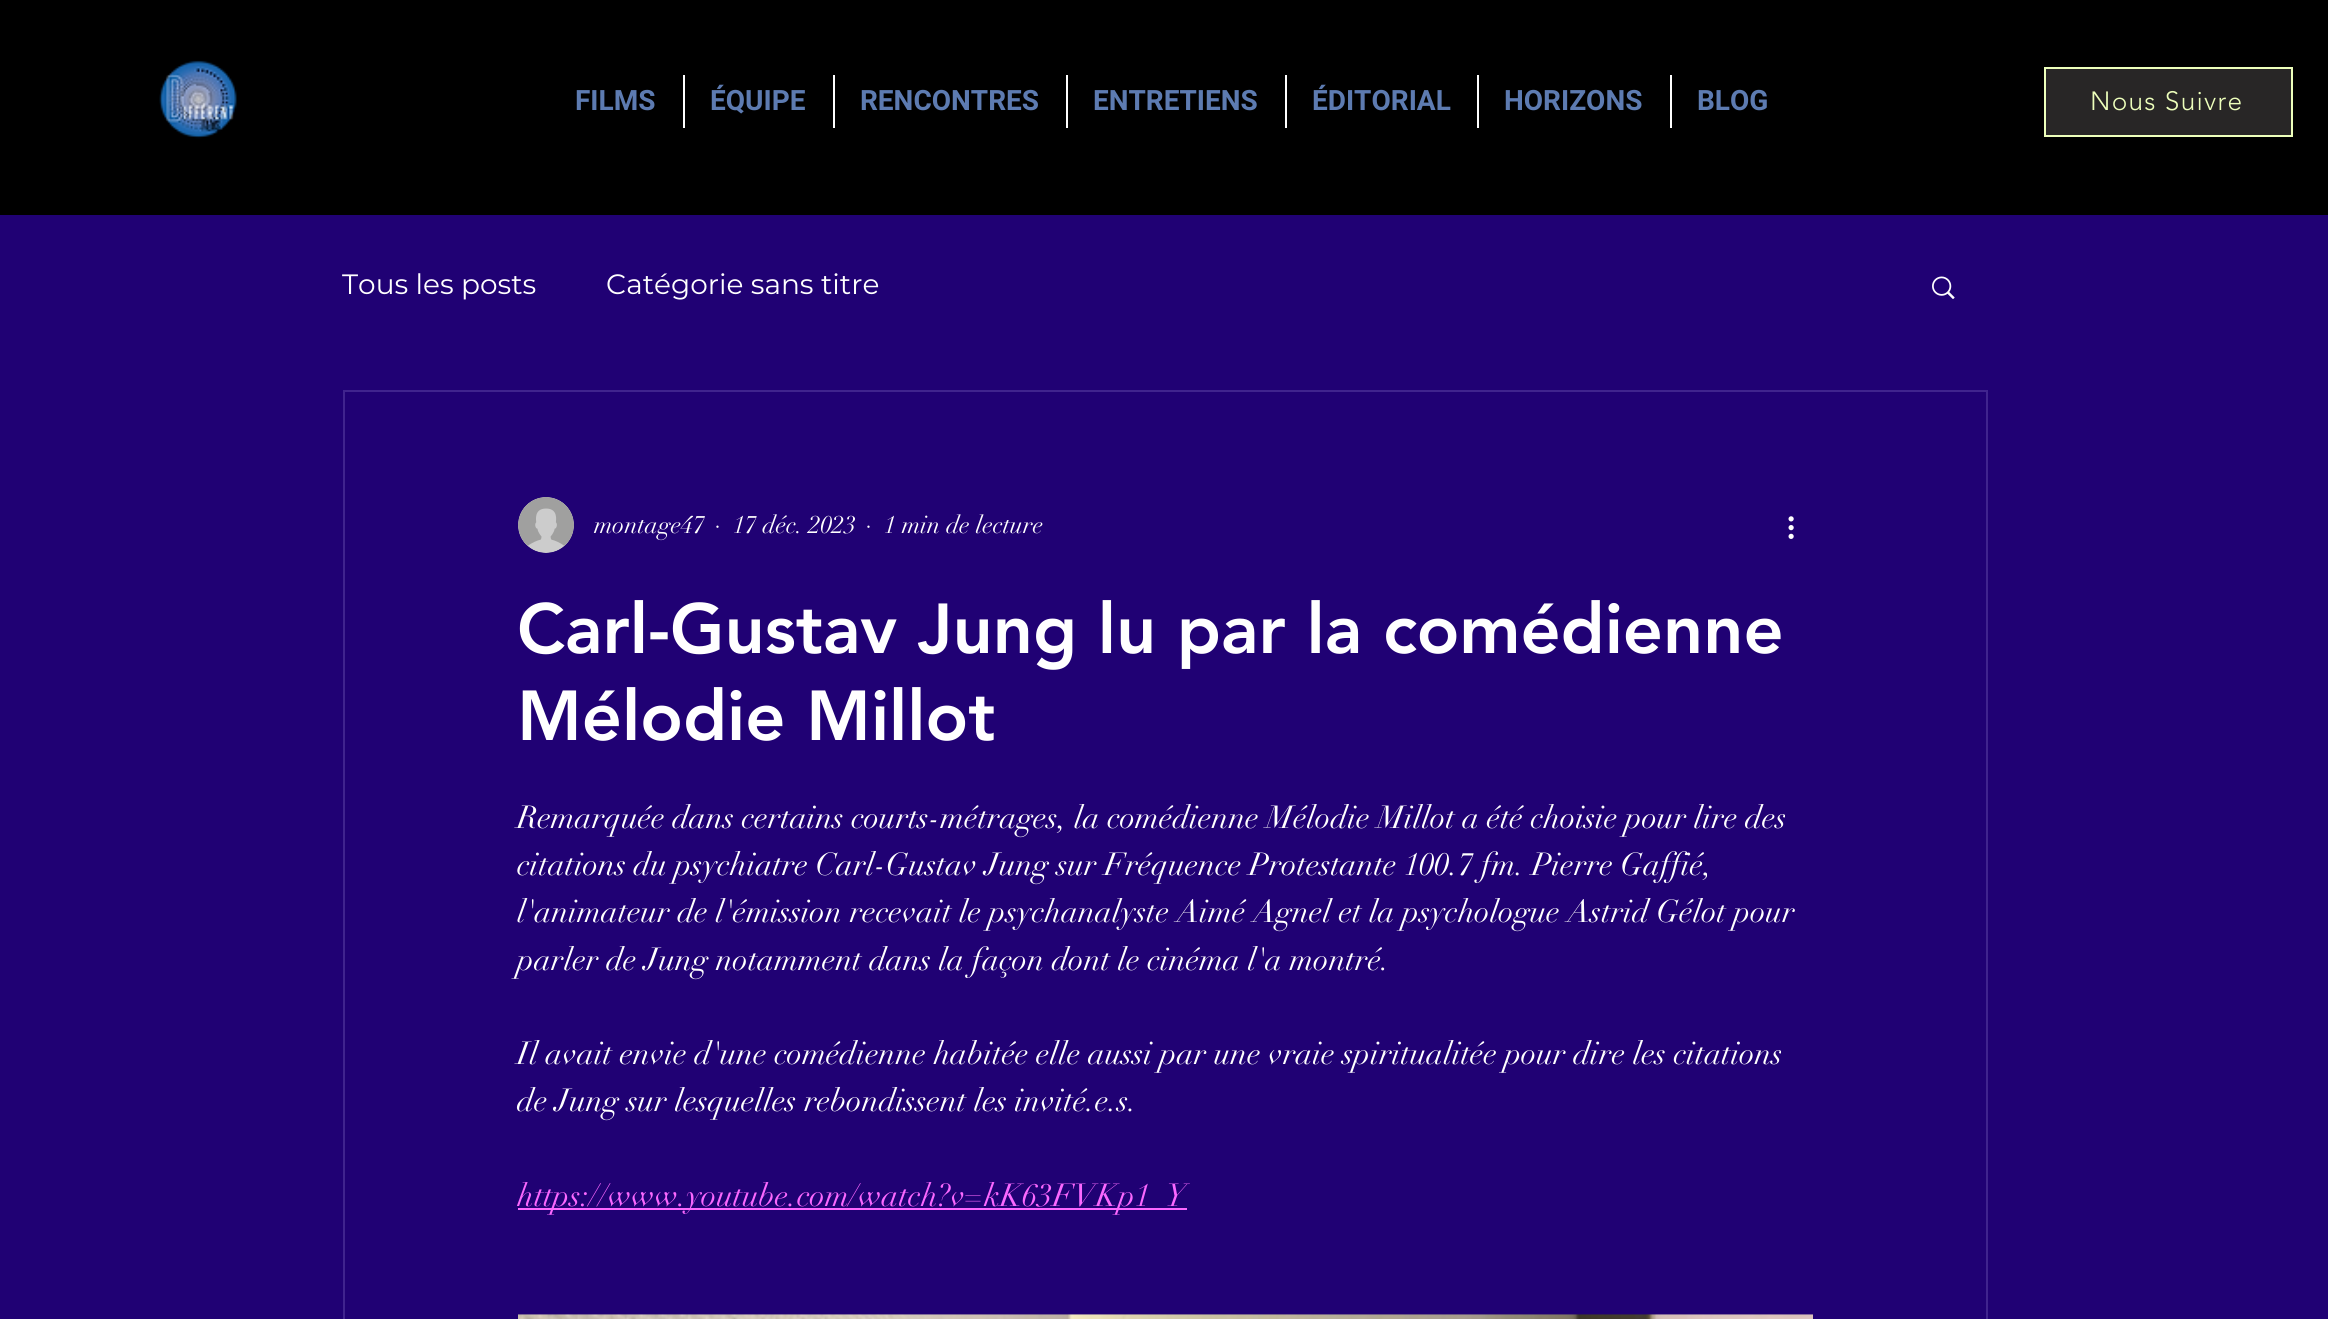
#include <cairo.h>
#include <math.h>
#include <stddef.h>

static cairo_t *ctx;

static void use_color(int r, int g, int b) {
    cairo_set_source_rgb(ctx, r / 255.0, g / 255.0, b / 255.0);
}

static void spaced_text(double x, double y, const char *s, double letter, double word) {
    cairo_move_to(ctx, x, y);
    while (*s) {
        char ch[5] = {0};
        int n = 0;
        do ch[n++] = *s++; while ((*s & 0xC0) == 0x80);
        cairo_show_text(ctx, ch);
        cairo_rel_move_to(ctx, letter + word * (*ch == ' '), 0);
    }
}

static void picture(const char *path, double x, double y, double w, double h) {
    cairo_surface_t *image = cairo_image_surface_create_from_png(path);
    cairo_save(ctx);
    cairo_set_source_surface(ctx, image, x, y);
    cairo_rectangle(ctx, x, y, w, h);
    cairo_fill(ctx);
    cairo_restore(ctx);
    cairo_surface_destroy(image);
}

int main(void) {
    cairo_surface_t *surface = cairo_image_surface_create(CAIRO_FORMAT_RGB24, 2328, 1319);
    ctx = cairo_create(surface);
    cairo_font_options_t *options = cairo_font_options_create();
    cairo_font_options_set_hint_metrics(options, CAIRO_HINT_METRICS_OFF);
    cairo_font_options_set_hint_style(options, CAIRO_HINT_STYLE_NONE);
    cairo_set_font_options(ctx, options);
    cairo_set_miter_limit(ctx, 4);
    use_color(32, 1, 116);
    cairo_paint(ctx);
    use_color(0, 0, 0);
    cairo_rectangle(ctx, 0, 0, 2328, 215);
    cairo_fill(ctx);
    picture("img1.png", 159, 60, 78, 79);
    cairo_select_font_face(ctx, "Roboto", CAIRO_FONT_SLANT_NORMAL, CAIRO_FONT_WEIGHT_BOLD);
    cairo_set_font_size(ctx, 28);
    use_color(93, 123, 177);
    cairo_move_to(ctx, 575, 110);
    cairo_show_text(ctx, "FILMS");
    use_color(255, 255, 255);
    cairo_rectangle(ctx, 683, 75, 2, 53);
    cairo_fill(ctx);
    use_color(93, 123, 177);
    cairo_move_to(ctx, 710, 110);
    cairo_show_text(ctx, "ÉQUIPE");
    use_color(255, 255, 255);
    cairo_rectangle(ctx, 833, 75, 2, 53);
    cairo_fill(ctx);
    use_color(93, 123, 177);
    cairo_move_to(ctx, 860, 110);
    cairo_show_text(ctx, "RENCONTRES");
    use_color(255, 255, 255);
    cairo_rectangle(ctx, 1066, 75, 2, 53);
    cairo_fill(ctx);
    use_color(93, 123, 177);
    cairo_move_to(ctx, 1093, 110);
    cairo_show_text(ctx, "ENTRETIENS");
    use_color(255, 255, 255);
    cairo_rectangle(ctx, 1285, 75, 2, 53);
    cairo_fill(ctx);
    use_color(93, 123, 177);
    cairo_move_to(ctx, 1312, 110);
    cairo_show_text(ctx, "ÉDITORIAL");
    use_color(255, 255, 255);
    cairo_rectangle(ctx, 1477, 75, 2, 53);
    cairo_fill(ctx);
    use_color(93, 123, 177);
    cairo_move_to(ctx, 1504, 110);
    cairo_show_text(ctx, "HORIZONS");
    use_color(255, 255, 255);
    cairo_rectangle(ctx, 1670, 75, 2, 53);
    cairo_fill(ctx);
    use_color(93, 123, 177);
    cairo_move_to(ctx, 1697, 110);
    cairo_show_text(ctx, "BLOG");
    use_color(40, 38, 38);
    cairo_rectangle(ctx, 2045, 68, 247, 68);
    cairo_fill_preserve(ctx);
    use_color(237, 255, 187);
    cairo_stroke(ctx);
    cairo_select_font_face(ctx, "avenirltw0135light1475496 Light", CAIRO_FONT_SLANT_NORMAL, CAIRO_FONT_WEIGHT_NORMAL);
    cairo_set_font_size(ctx, 26.25);
    spaced_text(2090, 110, "Nous Suivre", 1.25, 0);
    cairo_select_font_face(ctx, "Montserrat", CAIRO_FONT_SLANT_NORMAL, CAIRO_FONT_WEIGHT_NORMAL);
    cairo_set_font_size(ctx, 28);
    use_color(255, 255, 255);
    cairo_move_to(ctx, 342, 294);
    cairo_show_text(ctx, "Tous les posts");
    cairo_move_to(ctx, 606, 294);
    cairo_show_text(ctx, "Catégorie sans titre");
    picture("img2.png", 1932, 276, 23, 23);
    cairo_rectangle(ctx, 344, 391, 1643, 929);
    use_color(64, 36, 142);
    cairo_stroke(ctx);
    picture("img3.png", 518, 497, 56, 56);
    cairo_select_font_face(ctx, "didot", CAIRO_FONT_SLANT_NORMAL, CAIRO_FONT_WEIGHT_NORMAL);
    cairo_set_font_size(ctx, 24.5);
    use_color(255, 255, 255);
    cairo_move_to(ctx, 594, 533);
    cairo_show_text(ctx, "montage47");
    cairo_move_to(ctx, 715, 533);
    cairo_show_text(ctx, "·");
    cairo_move_to(ctx, 733, 533);
    cairo_show_text(ctx, "17 déc. 2023");
    cairo_move_to(ctx, 866, 533);
    cairo_show_text(ctx, "·");
    cairo_move_to(ctx, 884, 533);
    cairo_show_text(ctx, "1 min de lecture");
    picture("img4.png", 1788, 516, 6, 23);
    cairo_select_font_face(ctx, "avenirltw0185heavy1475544 Black", CAIRO_FONT_SLANT_NORMAL, CAIRO_FONT_WEIGHT_NORMAL);
    cairo_set_font_size(ctx, 70);
    cairo_move_to(ctx, 517, 653);
    cairo_show_text(ctx, "Carl-Gustav Jung lu par la comédienne");
    cairo_move_to(ctx, 517, 740);
    cairo_show_text(ctx, "Mélodie Millot");
    cairo_select_font_face(ctx, "didot", CAIRO_FONT_SLANT_NORMAL, CAIRO_FONT_WEIGHT_NORMAL);
    cairo_set_font_size(ctx, 31.5);
    cairo_move_to(ctx, 517, 828);
    cairo_show_text(ctx, "Remarquée dans certains courts-métrages, la comédienne Mélodie Millot a été choisie pour lire des");
    cairo_move_to(ctx, 517, 875);
    cairo_show_text(ctx, "citations du psychiatre Carl-Gustav Jung sur Fréquence Protestante 100.7 fm. Pierre Gaffié,");
    cairo_move_to(ctx, 517, 922);
    cairo_show_text(ctx, "l'animateur de l'émission recevait le psychanalyste Aimé Agnel et la psychologue Astrid Gélot pour");
    cairo_move_to(ctx, 517, 970);
    cairo_show_text(ctx, "parler de Jung notamment dans la façon dont le cinéma l'a montré.");
    cairo_move_to(ctx, 517, 1064);
    cairo_show_text(ctx, "Il avait envie d'une comédienne habitée elle aussi par une vraie spiritualitée pour dire les citations");
    cairo_move_to(ctx, 517, 1111);
    cairo_show_text(ctx, "de Jung sur lesquelles rebondissent les invité.e.s.");
    use_color(251, 104, 255);
    cairo_rectangle(ctx, 518, 1208, 669, 2);
    cairo_fill(ctx);
    cairo_move_to(ctx, 517, 1206);
    cairo_show_text(ctx, "https://www.youtube.com/watch?v=kK63FVKp1_Y");
    picture("img5.png", 518, 1314, 1295, 5);
    cairo_surface_write_to_png(surface, "result.png");
    cairo_font_options_destroy(options);
    cairo_destroy(ctx);
    cairo_surface_destroy(surface);
    return 0;
}
